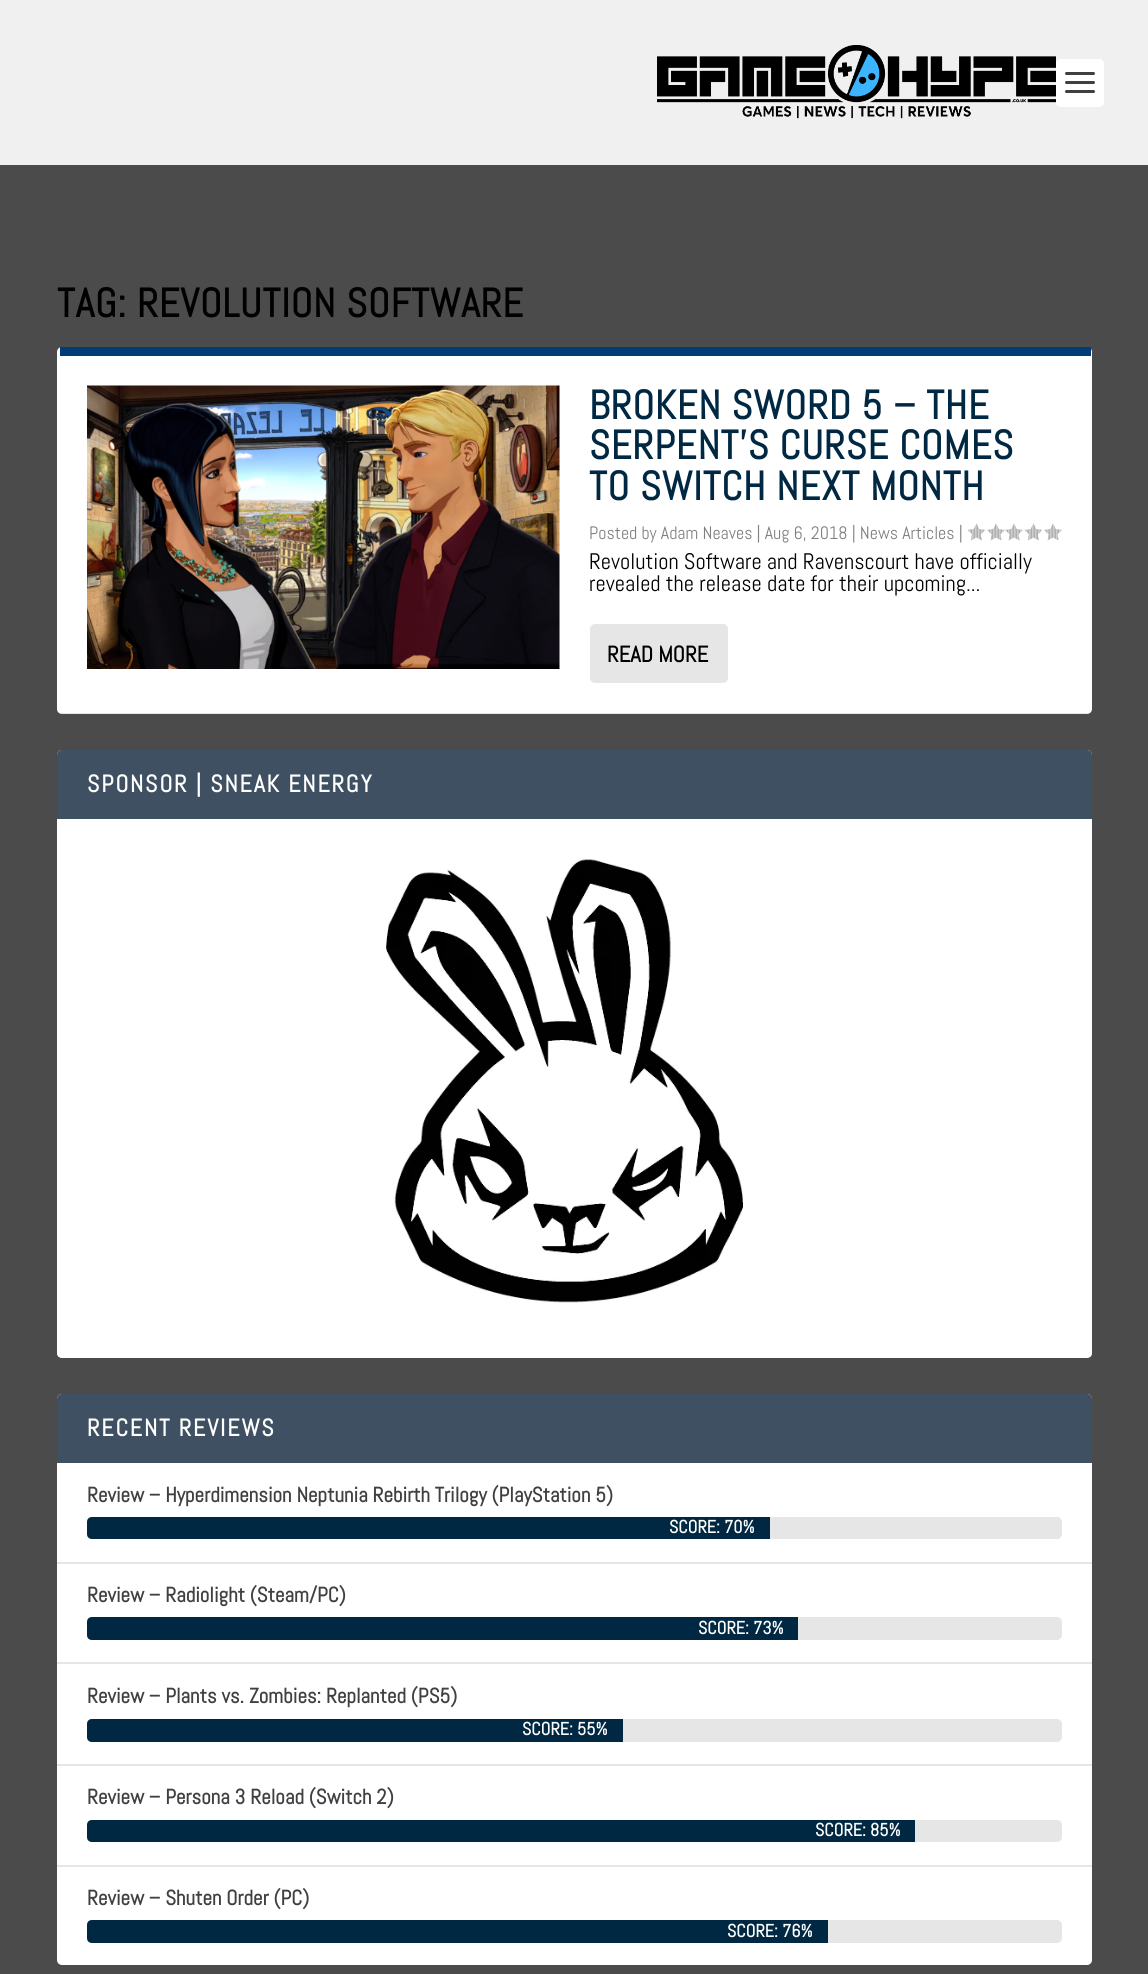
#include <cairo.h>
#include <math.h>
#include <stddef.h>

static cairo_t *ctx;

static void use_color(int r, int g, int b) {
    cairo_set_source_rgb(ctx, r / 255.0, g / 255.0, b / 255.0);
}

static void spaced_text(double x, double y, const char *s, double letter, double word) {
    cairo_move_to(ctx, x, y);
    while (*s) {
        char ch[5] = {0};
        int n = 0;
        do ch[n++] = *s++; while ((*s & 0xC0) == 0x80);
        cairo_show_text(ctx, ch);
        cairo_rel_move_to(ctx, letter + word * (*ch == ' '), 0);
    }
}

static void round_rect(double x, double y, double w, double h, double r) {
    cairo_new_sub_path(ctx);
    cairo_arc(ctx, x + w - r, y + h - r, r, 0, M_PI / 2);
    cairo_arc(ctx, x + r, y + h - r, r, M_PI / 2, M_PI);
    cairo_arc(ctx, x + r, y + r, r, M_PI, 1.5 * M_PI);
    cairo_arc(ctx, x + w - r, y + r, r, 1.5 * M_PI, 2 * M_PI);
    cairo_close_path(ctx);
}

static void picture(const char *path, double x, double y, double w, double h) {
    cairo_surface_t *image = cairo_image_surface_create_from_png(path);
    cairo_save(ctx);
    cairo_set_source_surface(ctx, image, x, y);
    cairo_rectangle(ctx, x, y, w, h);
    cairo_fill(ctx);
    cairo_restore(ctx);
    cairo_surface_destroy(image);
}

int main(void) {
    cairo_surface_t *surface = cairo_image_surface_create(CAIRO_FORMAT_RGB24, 1148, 1974);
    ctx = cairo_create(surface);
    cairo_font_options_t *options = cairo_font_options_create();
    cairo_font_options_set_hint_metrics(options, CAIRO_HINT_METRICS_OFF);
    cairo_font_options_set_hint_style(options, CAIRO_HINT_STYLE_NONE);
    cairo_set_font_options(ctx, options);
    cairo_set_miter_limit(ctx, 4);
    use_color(75, 75, 75);
    cairo_paint(ctx);
    use_color(240, 240, 240);
    cairo_rectangle(ctx, 0, 0, 1148, 165);
    cairo_fill(ctx);
    picture("img1.png", 657, 45, 399, 74);
    use_color(255, 255, 255);
    round_rect(1056, 59, 48, 48, 5);
    cairo_fill(ctx);
    use_color(64, 64, 64);
    round_rect(1065, 72, 30, 3, 1.5);
    cairo_fill(ctx);
    round_rect(1065, 81, 30, 3, 1.5);
    cairo_fill(ctx);
    round_rect(1065, 90, 30, 3, 1.5);
    cairo_fill(ctx);
    cairo_select_font_face(ctx, "Abel", CAIRO_FONT_SLANT_NORMAL, CAIRO_FONT_WEIGHT_BOLD);
    cairo_set_font_size(ctx, 40.5);
    use_color(0, 0, 0);
    spaced_text(57, 317, "TAG: REVOLUTION SOFTWARE", 0.75, 0);
    use_color(255, 255, 255);
    round_rect(57, 347, 1035, 367, 5);
    cairo_fill(ctx);
    use_color(0, 60, 120);
    cairo_rectangle(ctx, 60, 347, 1031, 9);
    cairo_fill(ctx);
    cairo_set_source_rgba(ctx, 0, 0, 0, 0.1);
    cairo_new_path(ctx);
    cairo_move_to(ctx, 1090, 713);
    cairo_line_to(ctx, 1088, 714);
    cairo_line_to(ctx, 61, 714);
    cairo_line_to(ctx, 59, 713);
    cairo_close_path(ctx);
    cairo_fill(ctx);
    picture("img2.png", 87, 385, 473, 284);
    use_color(0, 40, 66);
    spaced_text(589, 419, "BROKEN SWORD 5 – THE", 0.75, 0);
    spaced_text(589, 459, "SERPENT’S CURSE COMES", 0.75, 0);
    spaced_text(589, 500, "TO SWITCH NEXT MONTH", 0.75, 0);
    cairo_select_font_face(ctx, "Abel", CAIRO_FONT_SLANT_NORMAL, CAIRO_FONT_WEIGHT_NORMAL);
    cairo_set_font_size(ctx, 18);
    use_color(128, 128, 128);
    cairo_move_to(ctx, 589, 539);
    cairo_show_text(ctx, "Posted by Adam Neaves | Aug 6, 2018 | News Articles |");
    picture("img3.png", 967, 523, 19, 18);
    picture("img4.png", 987, 523, 18, 18);
    picture("img4.png", 1005, 523, 18, 18);
    picture("img3.png", 1024, 523, 19, 18);
    picture("img4.png", 1044, 523, 18, 18);
    cairo_set_font_size(ctx, 22.5);
    use_color(0, 0, 0);
    cairo_move_to(ctx, 589, 569);
    cairo_show_text(ctx, "Revolution Software and Ravenscourt have officially");
    cairo_move_to(ctx, 589, 591);
    cairo_show_text(ctx, "revealed the release date for their upcoming...");
    use_color(230, 230, 230);
    round_rect(590, 624, 138, 59, 5);
    cairo_fill(ctx);
    cairo_select_font_face(ctx, "Abel", CAIRO_FONT_SLANT_NORMAL, CAIRO_FONT_WEIGHT_BOLD);
    use_color(0, 0, 0);
    cairo_move_to(ctx, 607, 662);
    cairo_show_text(ctx, "READ MORE");
    use_color(255, 255, 255);
    round_rect(57, 750, 1035, 608, 5);
    cairo_fill(ctx);
    use_color(62, 80, 98);
    cairo_new_path(ctx);
    cairo_move_to(ctx, 62, 750);
    cairo_line_to(ctx, 1087, 750);
    cairo_curve_to(ctx, 1090, 750, 1092, 752, 1092, 755);
    cairo_line_to(ctx, 1092, 819);
    cairo_line_to(ctx, 57, 819);
    cairo_line_to(ctx, 57, 755);
    cairo_curve_to(ctx, 57, 752, 59, 750, 62, 750);
    cairo_close_path(ctx);
    cairo_fill(ctx);
    cairo_set_font_size(ctx, 24);
    use_color(255, 255, 255);
    spaced_text(87, 792, "SPONSOR | SNEAK ENERGY", 1.8, 0);
    picture("img5.png", 57, 858, 1035, 500);
    round_rect(57, 1394, 1035, 571, 5);
    cairo_fill(ctx);
    use_color(62, 80, 98);
    cairo_new_path(ctx);
    cairo_move_to(ctx, 62, 1394);
    cairo_line_to(ctx, 1087, 1394);
    cairo_curve_to(ctx, 1090, 1394, 1092, 1396, 1092, 1399);
    cairo_line_to(ctx, 1092, 1463);
    cairo_line_to(ctx, 57, 1463);
    cairo_line_to(ctx, 57, 1399);
    cairo_curve_to(ctx, 57, 1396, 59, 1394, 62, 1394);
    cairo_close_path(ctx);
    cairo_fill(ctx);
    use_color(255, 255, 255);
    spaced_text(87, 1436, "RECENT REVIEWS", 1.8, 0);
    use_color(230, 230, 230);
    cairo_rectangle(ctx, 57, 1562, 1035, 2);
    cairo_fill(ctx);
    cairo_set_font_size(ctx, 21);
    use_color(64, 64, 64);
    cairo_move_to(ctx, 87, 1502);
    cairo_show_text(ctx, "Review – Hyperdimension Neptunia Rebirth Trilogy (PlayStation 5)");
    use_color(230, 230, 230);
    round_rect(87, 1517, 975, 22, 5);
    cairo_fill(ctx);
    use_color(0, 40, 66);
    cairo_new_path(ctx);
    cairo_move_to(ctx, 92, 1517);
    cairo_line_to(ctx, 770, 1517);
    cairo_line_to(ctx, 770, 1539);
    cairo_line_to(ctx, 92, 1539);
    cairo_curve_to(ctx, 89, 1539, 87, 1537, 87, 1534);
    cairo_line_to(ctx, 87, 1522);
    cairo_curve_to(ctx, 87, 1519, 89, 1517, 92, 1517);
    cairo_close_path(ctx);
    cairo_fill(ctx);
    cairo_set_font_size(ctx, 18);
    use_color(255, 255, 255);
    cairo_move_to(ctx, 669, 1533);
    cairo_show_text(ctx, "SCORE: 70%");
    use_color(230, 230, 230);
    cairo_rectangle(ctx, 57, 1662, 1035, 2);
    cairo_fill(ctx);
    cairo_set_font_size(ctx, 21);
    use_color(64, 64, 64);
    cairo_move_to(ctx, 87, 1602);
    cairo_show_text(ctx, "Review – Radiolight (Steam/PC)");
    use_color(230, 230, 230);
    round_rect(87, 1617, 975, 23, 5);
    cairo_fill(ctx);
    use_color(0, 40, 66);
    cairo_new_path(ctx);
    cairo_move_to(ctx, 92, 1617);
    cairo_line_to(ctx, 798, 1617);
    cairo_line_to(ctx, 798, 1640);
    cairo_line_to(ctx, 92, 1640);
    cairo_curve_to(ctx, 89, 1640, 87, 1638, 87, 1635);
    cairo_line_to(ctx, 87, 1622);
    cairo_curve_to(ctx, 87, 1619, 89, 1617, 92, 1617);
    cairo_close_path(ctx);
    cairo_fill(ctx);
    cairo_set_font_size(ctx, 18);
    use_color(255, 255, 255);
    cairo_move_to(ctx, 698, 1634);
    cairo_show_text(ctx, "SCORE: 73%");
    use_color(230, 230, 230);
    cairo_rectangle(ctx, 57, 1764, 1035, 2);
    cairo_fill(ctx);
    cairo_set_font_size(ctx, 21);
    use_color(64, 64, 64);
    cairo_move_to(ctx, 87, 1703);
    cairo_show_text(ctx, "Review – Plants vs. Zombies: Replanted (PS5)");
    use_color(230, 230, 230);
    round_rect(87, 1719, 975, 23, 5);
    cairo_fill(ctx);
    use_color(0, 40, 66);
    cairo_new_path(ctx);
    cairo_move_to(ctx, 92, 1719);
    cairo_line_to(ctx, 623, 1719);
    cairo_line_to(ctx, 623, 1742);
    cairo_line_to(ctx, 92, 1742);
    cairo_curve_to(ctx, 89, 1742, 87, 1740, 87, 1737);
    cairo_line_to(ctx, 87, 1724);
    cairo_curve_to(ctx, 87, 1721, 89, 1719, 92, 1719);
    cairo_close_path(ctx);
    cairo_fill(ctx);
    cairo_set_font_size(ctx, 18);
    use_color(255, 255, 255);
    cairo_move_to(ctx, 522, 1735);
    cairo_show_text(ctx, "SCORE: 55%");
    use_color(230, 230, 230);
    cairo_rectangle(ctx, 57, 1865, 1035, 2);
    cairo_fill(ctx);
    cairo_set_font_size(ctx, 21);
    use_color(64, 64, 64);
    cairo_move_to(ctx, 87, 1804);
    cairo_show_text(ctx, "Review – Persona 3 Reload (Switch 2)");
    use_color(230, 230, 230);
    round_rect(87, 1820, 975, 22, 5);
    cairo_fill(ctx);
    use_color(0, 40, 66);
    cairo_new_path(ctx);
    cairo_move_to(ctx, 92, 1820);
    cairo_line_to(ctx, 915, 1820);
    cairo_line_to(ctx, 915, 1842);
    cairo_line_to(ctx, 92, 1842);
    cairo_curve_to(ctx, 89, 1842, 87, 1840, 87, 1837);
    cairo_line_to(ctx, 87, 1825);
    cairo_curve_to(ctx, 87, 1822, 89, 1820, 92, 1820);
    cairo_close_path(ctx);
    cairo_fill(ctx);
    cairo_set_font_size(ctx, 18);
    use_color(255, 255, 255);
    cairo_move_to(ctx, 815, 1836);
    cairo_show_text(ctx, "SCORE: 85%");
    cairo_set_font_size(ctx, 21);
    use_color(64, 64, 64);
    cairo_move_to(ctx, 87, 1905);
    cairo_show_text(ctx, "Review – Shuten Order (PC)");
    use_color(230, 230, 230);
    round_rect(87, 1920, 975, 23, 5);
    cairo_fill(ctx);
    use_color(0, 40, 66);
    cairo_new_path(ctx);
    cairo_move_to(ctx, 92, 1920);
    cairo_line_to(ctx, 828, 1920);
    cairo_line_to(ctx, 828, 1943);
    cairo_line_to(ctx, 92, 1943);
    cairo_curve_to(ctx, 89, 1943, 87, 1941, 87, 1938);
    cairo_line_to(ctx, 87, 1925);
    cairo_curve_to(ctx, 87, 1922, 89, 1920, 92, 1920);
    cairo_close_path(ctx);
    cairo_fill(ctx);
    cairo_set_font_size(ctx, 18);
    use_color(255, 255, 255);
    cairo_move_to(ctx, 727, 1937);
    cairo_show_text(ctx, "SCORE: 76%");
    cairo_surface_write_to_png(surface, "result.png");
    cairo_font_options_destroy(options);
    cairo_destroy(ctx);
    cairo_surface_destroy(surface);
    return 0;
}
